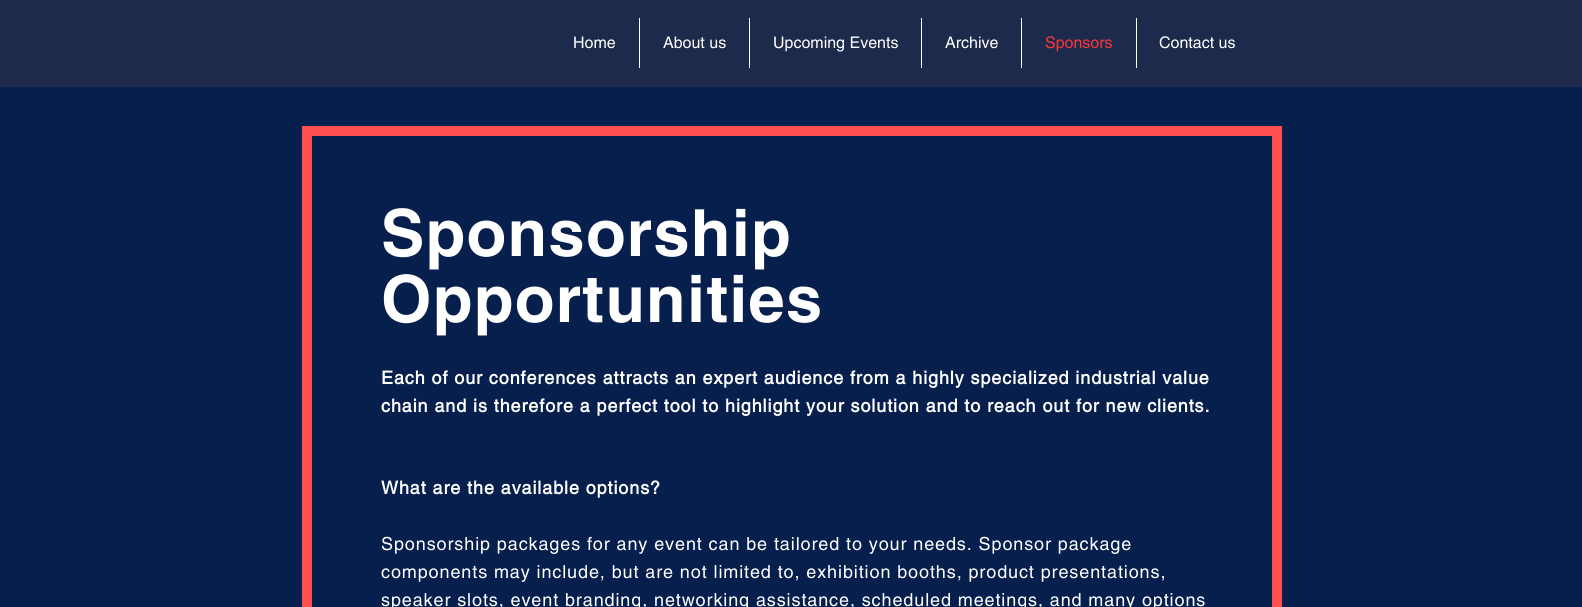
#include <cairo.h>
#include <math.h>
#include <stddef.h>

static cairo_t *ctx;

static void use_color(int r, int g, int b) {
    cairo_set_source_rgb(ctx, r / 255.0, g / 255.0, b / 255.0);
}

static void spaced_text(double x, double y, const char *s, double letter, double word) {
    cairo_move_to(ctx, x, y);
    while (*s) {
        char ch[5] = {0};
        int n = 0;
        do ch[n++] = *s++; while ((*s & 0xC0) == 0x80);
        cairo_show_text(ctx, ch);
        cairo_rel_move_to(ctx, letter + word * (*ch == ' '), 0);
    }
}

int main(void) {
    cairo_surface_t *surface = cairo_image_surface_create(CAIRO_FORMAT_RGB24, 1582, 607);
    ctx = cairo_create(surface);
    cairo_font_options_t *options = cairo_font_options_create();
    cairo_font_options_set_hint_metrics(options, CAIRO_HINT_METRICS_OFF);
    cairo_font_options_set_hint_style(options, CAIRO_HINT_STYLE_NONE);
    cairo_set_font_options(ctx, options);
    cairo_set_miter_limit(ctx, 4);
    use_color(7, 31, 77);
    cairo_paint(ctx);
    use_color(30, 42, 75);
    cairo_rectangle(ctx, 0, 0, 1582, 87);
    cairo_fill(ctx);
    cairo_select_font_face(ctx, "helvetica", CAIRO_FONT_SLANT_NORMAL, CAIRO_FONT_WEIGHT_NORMAL);
    cairo_set_font_size(ctx, 16);
    use_color(255, 255, 255);
    cairo_move_to(ctx, 573, 48);
    cairo_show_text(ctx, "Home");
    cairo_rectangle(ctx, 639, 18, 1, 50);
    cairo_fill(ctx);
    cairo_move_to(ctx, 663, 48);
    cairo_show_text(ctx, "About us");
    cairo_rectangle(ctx, 749, 18, 1, 50);
    cairo_fill(ctx);
    cairo_move_to(ctx, 773, 48);
    cairo_show_text(ctx, "Upcoming Events");
    cairo_rectangle(ctx, 921, 18, 1, 50);
    cairo_fill(ctx);
    cairo_move_to(ctx, 945, 48);
    cairo_show_text(ctx, "Archive");
    cairo_rectangle(ctx, 1021, 18, 1, 50);
    cairo_fill(ctx);
    use_color(247, 55, 58);
    cairo_move_to(ctx, 1045, 48);
    cairo_show_text(ctx, "Sponsors");
    use_color(255, 255, 255);
    cairo_rectangle(ctx, 1136, 18, 1, 50);
    cairo_fill(ctx);
    cairo_move_to(ctx, 1159, 48);
    cairo_show_text(ctx, "Contact us");
    cairo_rectangle(ctx, 307, 131, 970, 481);
    use_color(255, 79, 79);
    cairo_set_line_width(ctx, 10);
    cairo_stroke(ctx);
    cairo_select_font_face(ctx, "helvetica", CAIRO_FONT_SLANT_NORMAL, CAIRO_FONT_WEIGHT_BOLD);
    cairo_set_font_size(ctx, 65);
    use_color(255, 255, 255);
    spaced_text(381, 256, "Sponsorship", 1.25, 0);
    spaced_text(381, 322, "Opportunities", 1.25, 0);
    cairo_select_font_face(ctx, "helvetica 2", CAIRO_FONT_SLANT_NORMAL, CAIRO_FONT_WEIGHT_BOLD);
    cairo_set_font_size(ctx, 18);
    spaced_text(381, 384, "Each of our conferences attracts an expert audience from a highly specialized industrial value", 0.9, 0);
    spaced_text(381, 412, "chain and is therefore a perfect tool to highlight your solution and to reach out for new clients.", 0.9, 0);
    spaced_text(381, 494, "What are the available options?", 0.9, 0);
    cairo_select_font_face(ctx, "helvetica", CAIRO_FONT_SLANT_NORMAL, CAIRO_FONT_WEIGHT_NORMAL);
    spaced_text(381, 550, "Sponsorship packages for any event can be tailored to your needs. Sponsor package", 0.9, 0);
    spaced_text(381, 578, "components may include, but are not limited to, exhibition booths, product presentations,", 0.9, 0);
    spaced_text(381, 606, "speaker slots, event branding, networking assistance, scheduled meetings, and many options", 0.9, 0);
    cairo_surface_write_to_png(surface, "result.png");
    cairo_font_options_destroy(options);
    cairo_destroy(ctx);
    cairo_surface_destroy(surface);
    return 0;
}
